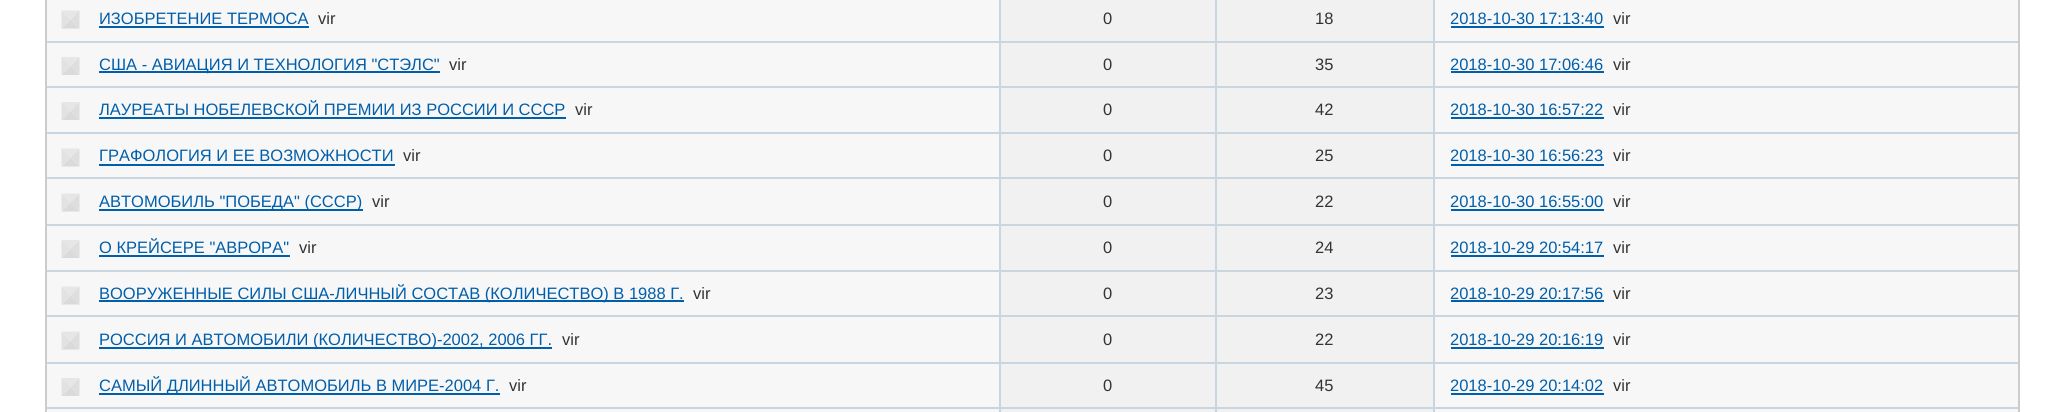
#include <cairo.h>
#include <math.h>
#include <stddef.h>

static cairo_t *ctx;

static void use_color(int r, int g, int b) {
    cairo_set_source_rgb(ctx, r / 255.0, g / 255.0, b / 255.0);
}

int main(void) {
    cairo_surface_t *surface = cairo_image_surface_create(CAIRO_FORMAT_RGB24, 2063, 412);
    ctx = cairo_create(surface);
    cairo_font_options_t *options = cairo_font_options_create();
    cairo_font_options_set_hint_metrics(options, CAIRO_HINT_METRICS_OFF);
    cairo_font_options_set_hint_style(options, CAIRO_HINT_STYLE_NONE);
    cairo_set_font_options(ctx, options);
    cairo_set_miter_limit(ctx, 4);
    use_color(255, 255, 255);
    cairo_paint(ctx);
    use_color(247, 247, 247);
    cairo_rectangle(ctx, 47, 0, 1971, 412);
    cairo_fill(ctx);
    use_color(204, 204, 204);
    cairo_rectangle(ctx, 2018, 0, 2, 412);
    cairo_fill(ctx);
    cairo_rectangle(ctx, 45, 0, 2, 412);
    cairo_fill(ctx);
    use_color(230, 230, 230);
    cairo_new_path(ctx);
    cairo_move_to(ctx, 61.5, 10.5);
    cairo_line_to(ctx, 79.5, 10.5);
    cairo_line_to(ctx, 70.5, 19.5);
    cairo_close_path(ctx);
    cairo_fill(ctx);
    use_color(222, 222, 222);
    cairo_new_path(ctx);
    cairo_move_to(ctx, 79.5, 10.5);
    cairo_line_to(ctx, 79.5, 28.5);
    cairo_line_to(ctx, 70.5, 19.5);
    cairo_close_path(ctx);
    cairo_fill(ctx);
    use_color(218, 218, 218);
    cairo_new_path(ctx);
    cairo_move_to(ctx, 79.5, 28.5);
    cairo_line_to(ctx, 61.5, 28.5);
    cairo_line_to(ctx, 70.5, 19.5);
    cairo_close_path(ctx);
    cairo_fill(ctx);
    use_color(226, 226, 226);
    cairo_new_path(ctx);
    cairo_move_to(ctx, 61.5, 28.5);
    cairo_line_to(ctx, 61.5, 10.5);
    cairo_line_to(ctx, 70.5, 19.5);
    cairo_close_path(ctx);
    cairo_fill(ctx);
    cairo_select_font_face(ctx, "Liberation Sans", CAIRO_FONT_SLANT_NORMAL, CAIRO_FONT_WEIGHT_NORMAL);
    cairo_set_font_size(ctx, 16.5);
    use_color(0, 94, 171);
    cairo_move_to(ctx, 99, 24);
    cairo_show_text(ctx, "ИЗОБРЕТЕНИЕ ТЕРМОСА");
    cairo_rectangle(ctx, 99, 26, 210, 2);
    cairo_fill(ctx);
    use_color(51, 51, 51);
    cairo_move_to(ctx, 318, 24);
    cairo_show_text(ctx, "vir");
    use_color(241, 241, 241);
    cairo_rectangle(ctx, 1001, 0, 214, 41);
    cairo_fill(ctx);
    use_color(201, 214, 224);
    cairo_rectangle(ctx, 999, 0, 2, 41);
    cairo_fill(ctx);
    use_color(51, 51, 51);
    cairo_move_to(ctx, 1103, 24);
    cairo_show_text(ctx, "0");
    use_color(241, 241, 241);
    cairo_rectangle(ctx, 1217, 0, 216, 41);
    cairo_fill(ctx);
    use_color(201, 214, 224);
    cairo_rectangle(ctx, 1215, 0, 2, 41);
    cairo_fill(ctx);
    use_color(51, 51, 51);
    cairo_move_to(ctx, 1315, 24);
    cairo_show_text(ctx, "18");
    use_color(201, 214, 224);
    cairo_rectangle(ctx, 47, 41, 1971, 2);
    cairo_fill(ctx);
    cairo_rectangle(ctx, 47, 86, 1971, 2);
    cairo_fill(ctx);
    cairo_rectangle(ctx, 47, 132, 1971, 2);
    cairo_fill(ctx);
    cairo_rectangle(ctx, 47, 177, 1971, 2);
    cairo_fill(ctx);
    cairo_rectangle(ctx, 47, 224, 1971, 2);
    cairo_fill(ctx);
    cairo_rectangle(ctx, 47, 270, 1971, 2);
    cairo_fill(ctx);
    cairo_rectangle(ctx, 47, 315, 1971, 2);
    cairo_fill(ctx);
    cairo_rectangle(ctx, 47, 362, 1971, 2);
    cairo_fill(ctx);
    cairo_rectangle(ctx, 47, 407, 1971, 2);
    cairo_fill(ctx);
    cairo_rectangle(ctx, 1433, 0, 2, 412);
    cairo_fill(ctx);
    use_color(0, 94, 171);
    cairo_move_to(ctx, 1450, 24);
    cairo_show_text(ctx, "2018-10-30 17:13:40");
    cairo_rectangle(ctx, 1451, 26, 153, 2);
    cairo_fill(ctx);
    use_color(51, 51, 51);
    cairo_move_to(ctx, 1613, 24);
    cairo_show_text(ctx, "vir");
    use_color(230, 230, 230);
    cairo_new_path(ctx);
    cairo_move_to(ctx, 61.5, 57);
    cairo_line_to(ctx, 79.5, 57);
    cairo_line_to(ctx, 70.5, 66);
    cairo_close_path(ctx);
    cairo_fill(ctx);
    use_color(222, 222, 222);
    cairo_new_path(ctx);
    cairo_move_to(ctx, 79.5, 57);
    cairo_line_to(ctx, 79.5, 75);
    cairo_line_to(ctx, 70.5, 66);
    cairo_close_path(ctx);
    cairo_fill(ctx);
    use_color(218, 218, 218);
    cairo_new_path(ctx);
    cairo_move_to(ctx, 79.5, 75);
    cairo_line_to(ctx, 61.5, 75);
    cairo_line_to(ctx, 70.5, 66);
    cairo_close_path(ctx);
    cairo_fill(ctx);
    use_color(226, 226, 226);
    cairo_new_path(ctx);
    cairo_move_to(ctx, 61.5, 75);
    cairo_line_to(ctx, 61.5, 57);
    cairo_line_to(ctx, 70.5, 66);
    cairo_close_path(ctx);
    cairo_fill(ctx);
    use_color(0, 94, 171);
    cairo_rectangle(ctx, 99, 71, 341, 2);
    cairo_fill(ctx);
    cairo_move_to(ctx, 99, 70);
    cairo_show_text(ctx, "США - АВИАЦИЯ И ТЕХНОЛОГИЯ \"СТЭЛС\"");
    use_color(51, 51, 51);
    cairo_move_to(ctx, 449, 70);
    cairo_show_text(ctx, "vir");
    use_color(241, 241, 241);
    cairo_rectangle(ctx, 1001, 43, 214, 43);
    cairo_fill(ctx);
    use_color(201, 214, 224);
    cairo_rectangle(ctx, 999, 41, 2, 45);
    cairo_fill(ctx);
    use_color(51, 51, 51);
    cairo_move_to(ctx, 1103, 70);
    cairo_show_text(ctx, "0");
    use_color(241, 241, 241);
    cairo_rectangle(ctx, 1217, 43, 216, 43);
    cairo_fill(ctx);
    use_color(201, 214, 224);
    cairo_rectangle(ctx, 1215, 41, 2, 45);
    cairo_fill(ctx);
    use_color(51, 51, 51);
    cairo_move_to(ctx, 1315, 70);
    cairo_show_text(ctx, "35");
    use_color(0, 94, 171);
    cairo_move_to(ctx, 1450, 70);
    cairo_show_text(ctx, "2018-10-30 17:06:46");
    cairo_rectangle(ctx, 1451, 71, 153, 2);
    cairo_fill(ctx);
    use_color(51, 51, 51);
    cairo_move_to(ctx, 1613, 70);
    cairo_show_text(ctx, "vir");
    use_color(230, 230, 230);
    cairo_new_path(ctx);
    cairo_move_to(ctx, 61.5, 102);
    cairo_line_to(ctx, 79.5, 102);
    cairo_line_to(ctx, 70.5, 111);
    cairo_close_path(ctx);
    cairo_fill(ctx);
    use_color(222, 222, 222);
    cairo_new_path(ctx);
    cairo_move_to(ctx, 79.5, 102);
    cairo_line_to(ctx, 79.5, 120);
    cairo_line_to(ctx, 70.5, 111);
    cairo_close_path(ctx);
    cairo_fill(ctx);
    use_color(218, 218, 218);
    cairo_new_path(ctx);
    cairo_move_to(ctx, 79.5, 120);
    cairo_line_to(ctx, 61.5, 120);
    cairo_line_to(ctx, 70.5, 111);
    cairo_close_path(ctx);
    cairo_fill(ctx);
    use_color(226, 226, 226);
    cairo_new_path(ctx);
    cairo_move_to(ctx, 61.5, 120);
    cairo_line_to(ctx, 61.5, 102);
    cairo_line_to(ctx, 70.5, 111);
    cairo_close_path(ctx);
    cairo_fill(ctx);
    use_color(0, 94, 171);
    cairo_move_to(ctx, 99, 115);
    cairo_show_text(ctx, "ЛАУРЕАТЫ НОБЕЛЕВСКОЙ ПРЕМИИ ИЗ РОССИИ И СССР");
    cairo_rectangle(ctx, 99, 117, 467, 2);
    cairo_fill(ctx);
    use_color(51, 51, 51);
    cairo_move_to(ctx, 575, 115);
    cairo_show_text(ctx, "vir");
    use_color(241, 241, 241);
    cairo_rectangle(ctx, 1001, 88, 214, 44);
    cairo_fill(ctx);
    use_color(201, 214, 224);
    cairo_rectangle(ctx, 999, 86, 2, 46);
    cairo_fill(ctx);
    use_color(51, 51, 51);
    cairo_move_to(ctx, 1103, 115);
    cairo_show_text(ctx, "0");
    use_color(241, 241, 241);
    cairo_rectangle(ctx, 1217, 88, 216, 44);
    cairo_fill(ctx);
    use_color(201, 214, 224);
    cairo_rectangle(ctx, 1215, 86, 2, 46);
    cairo_fill(ctx);
    use_color(51, 51, 51);
    cairo_move_to(ctx, 1315, 115);
    cairo_show_text(ctx, "42");
    use_color(0, 94, 171);
    cairo_move_to(ctx, 1450, 115);
    cairo_show_text(ctx, "2018-10-30 16:57:22");
    cairo_rectangle(ctx, 1451, 117, 153, 2);
    cairo_fill(ctx);
    use_color(51, 51, 51);
    cairo_move_to(ctx, 1613, 115);
    cairo_show_text(ctx, "vir");
    use_color(230, 230, 230);
    cairo_new_path(ctx);
    cairo_move_to(ctx, 61.5, 148.5);
    cairo_line_to(ctx, 79.5, 148.5);
    cairo_line_to(ctx, 70.5, 157.5);
    cairo_close_path(ctx);
    cairo_fill(ctx);
    use_color(222, 222, 222);
    cairo_new_path(ctx);
    cairo_move_to(ctx, 79.5, 148.5);
    cairo_line_to(ctx, 79.5, 166.5);
    cairo_line_to(ctx, 70.5, 157.5);
    cairo_close_path(ctx);
    cairo_fill(ctx);
    use_color(218, 218, 218);
    cairo_new_path(ctx);
    cairo_move_to(ctx, 79.5, 166.5);
    cairo_line_to(ctx, 61.5, 166.5);
    cairo_line_to(ctx, 70.5, 157.5);
    cairo_close_path(ctx);
    cairo_fill(ctx);
    use_color(226, 226, 226);
    cairo_new_path(ctx);
    cairo_move_to(ctx, 61.5, 166.5);
    cairo_line_to(ctx, 61.5, 148.5);
    cairo_line_to(ctx, 70.5, 157.5);
    cairo_close_path(ctx);
    cairo_fill(ctx);
    use_color(0, 94, 171);
    cairo_move_to(ctx, 99, 161);
    cairo_show_text(ctx, "ГРАФОЛОГИЯ И ЕЕ ВОЗМОЖНОСТИ");
    cairo_rectangle(ctx, 99, 164, 296, 2);
    cairo_fill(ctx);
    use_color(51, 51, 51);
    cairo_move_to(ctx, 403, 161);
    cairo_show_text(ctx, "vir");
    use_color(241, 241, 241);
    cairo_rectangle(ctx, 1001, 134, 214, 43);
    cairo_fill(ctx);
    use_color(201, 214, 224);
    cairo_rectangle(ctx, 999, 132, 2, 45);
    cairo_fill(ctx);
    use_color(51, 51, 51);
    cairo_move_to(ctx, 1103, 161);
    cairo_show_text(ctx, "0");
    use_color(241, 241, 241);
    cairo_rectangle(ctx, 1217, 134, 216, 43);
    cairo_fill(ctx);
    use_color(201, 214, 224);
    cairo_rectangle(ctx, 1215, 132, 2, 45);
    cairo_fill(ctx);
    use_color(51, 51, 51);
    cairo_move_to(ctx, 1315, 161);
    cairo_show_text(ctx, "25");
    use_color(0, 94, 171);
    cairo_move_to(ctx, 1450, 161);
    cairo_show_text(ctx, "2018-10-30 16:56:23");
    cairo_rectangle(ctx, 1451, 164, 153, 2);
    cairo_fill(ctx);
    use_color(51, 51, 51);
    cairo_move_to(ctx, 1613, 161);
    cairo_show_text(ctx, "vir");
    use_color(230, 230, 230);
    cairo_new_path(ctx);
    cairo_move_to(ctx, 61.5, 193.5);
    cairo_line_to(ctx, 79.5, 193.5);
    cairo_line_to(ctx, 70.5, 202.5);
    cairo_close_path(ctx);
    cairo_fill(ctx);
    use_color(222, 222, 222);
    cairo_new_path(ctx);
    cairo_move_to(ctx, 79.5, 193.5);
    cairo_line_to(ctx, 79.5, 211.5);
    cairo_line_to(ctx, 70.5, 202.5);
    cairo_close_path(ctx);
    cairo_fill(ctx);
    use_color(218, 218, 218);
    cairo_new_path(ctx);
    cairo_move_to(ctx, 79.5, 211.5);
    cairo_line_to(ctx, 61.5, 211.5);
    cairo_line_to(ctx, 70.5, 202.5);
    cairo_close_path(ctx);
    cairo_fill(ctx);
    use_color(226, 226, 226);
    cairo_new_path(ctx);
    cairo_move_to(ctx, 61.5, 211.5);
    cairo_line_to(ctx, 61.5, 193.5);
    cairo_line_to(ctx, 70.5, 202.5);
    cairo_close_path(ctx);
    cairo_fill(ctx);
    use_color(0, 94, 171);
    cairo_rectangle(ctx, 99, 209, 264, 2);
    cairo_fill(ctx);
    cairo_move_to(ctx, 99, 207);
    cairo_show_text(ctx, "АВТОМОБИЛЬ \"ПОБЕДА\" (СССР)");
    use_color(51, 51, 51);
    cairo_move_to(ctx, 372, 207);
    cairo_show_text(ctx, "vir");
    use_color(241, 241, 241);
    cairo_rectangle(ctx, 1001, 179, 214, 45);
    cairo_fill(ctx);
    use_color(201, 214, 224);
    cairo_rectangle(ctx, 999, 177, 2, 47);
    cairo_fill(ctx);
    use_color(51, 51, 51);
    cairo_move_to(ctx, 1103, 207);
    cairo_show_text(ctx, "0");
    use_color(241, 241, 241);
    cairo_rectangle(ctx, 1217, 179, 216, 45);
    cairo_fill(ctx);
    use_color(201, 214, 224);
    cairo_rectangle(ctx, 1215, 177, 2, 47);
    cairo_fill(ctx);
    use_color(51, 51, 51);
    cairo_move_to(ctx, 1315, 207);
    cairo_show_text(ctx, "22");
    use_color(0, 94, 171);
    cairo_move_to(ctx, 1450, 207);
    cairo_show_text(ctx, "2018-10-30 16:55:00");
    cairo_rectangle(ctx, 1451, 209, 153, 2);
    cairo_fill(ctx);
    use_color(51, 51, 51);
    cairo_move_to(ctx, 1613, 207);
    cairo_show_text(ctx, "vir");
    use_color(230, 230, 230);
    cairo_new_path(ctx);
    cairo_move_to(ctx, 61.5, 240);
    cairo_line_to(ctx, 79.5, 240);
    cairo_line_to(ctx, 70.5, 249);
    cairo_close_path(ctx);
    cairo_fill(ctx);
    use_color(222, 222, 222);
    cairo_new_path(ctx);
    cairo_move_to(ctx, 79.5, 240);
    cairo_line_to(ctx, 79.5, 258);
    cairo_line_to(ctx, 70.5, 249);
    cairo_close_path(ctx);
    cairo_fill(ctx);
    use_color(218, 218, 218);
    cairo_new_path(ctx);
    cairo_move_to(ctx, 79.5, 258);
    cairo_line_to(ctx, 61.5, 258);
    cairo_line_to(ctx, 70.5, 249);
    cairo_close_path(ctx);
    cairo_fill(ctx);
    use_color(226, 226, 226);
    cairo_new_path(ctx);
    cairo_move_to(ctx, 61.5, 258);
    cairo_line_to(ctx, 61.5, 240);
    cairo_line_to(ctx, 70.5, 249);
    cairo_close_path(ctx);
    cairo_fill(ctx);
    use_color(0, 94, 171);
    cairo_move_to(ctx, 99, 253);
    cairo_show_text(ctx, "О КРЕЙСЕРЕ \"АВРОРА\"");
    cairo_rectangle(ctx, 99, 255, 191, 2);
    cairo_fill(ctx);
    use_color(51, 51, 51);
    cairo_move_to(ctx, 299, 253);
    cairo_show_text(ctx, "vir");
    use_color(241, 241, 241);
    cairo_rectangle(ctx, 1001, 226, 214, 44);
    cairo_fill(ctx);
    use_color(201, 214, 224);
    cairo_rectangle(ctx, 999, 224, 2, 46);
    cairo_fill(ctx);
    use_color(51, 51, 51);
    cairo_move_to(ctx, 1103, 253);
    cairo_show_text(ctx, "0");
    use_color(241, 241, 241);
    cairo_rectangle(ctx, 1217, 226, 216, 44);
    cairo_fill(ctx);
    use_color(201, 214, 224);
    cairo_rectangle(ctx, 1215, 224, 2, 46);
    cairo_fill(ctx);
    use_color(51, 51, 51);
    cairo_move_to(ctx, 1315, 253);
    cairo_show_text(ctx, "24");
    use_color(0, 94, 171);
    cairo_move_to(ctx, 1450, 253);
    cairo_show_text(ctx, "2018-10-29 20:54:17");
    cairo_rectangle(ctx, 1451, 255, 153, 2);
    cairo_fill(ctx);
    use_color(51, 51, 51);
    cairo_move_to(ctx, 1613, 253);
    cairo_show_text(ctx, "vir");
    use_color(230, 230, 230);
    cairo_new_path(ctx);
    cairo_move_to(ctx, 61.5, 286.5);
    cairo_line_to(ctx, 79.5, 286.5);
    cairo_line_to(ctx, 70.5, 295.5);
    cairo_close_path(ctx);
    cairo_fill(ctx);
    use_color(222, 222, 222);
    cairo_new_path(ctx);
    cairo_move_to(ctx, 79.5, 286.5);
    cairo_line_to(ctx, 79.5, 304.5);
    cairo_line_to(ctx, 70.5, 295.5);
    cairo_close_path(ctx);
    cairo_fill(ctx);
    use_color(218, 218, 218);
    cairo_new_path(ctx);
    cairo_move_to(ctx, 79.5, 304.5);
    cairo_line_to(ctx, 61.5, 304.5);
    cairo_line_to(ctx, 70.5, 295.5);
    cairo_close_path(ctx);
    cairo_fill(ctx);
    use_color(226, 226, 226);
    cairo_new_path(ctx);
    cairo_move_to(ctx, 61.5, 304.5);
    cairo_line_to(ctx, 61.5, 286.5);
    cairo_line_to(ctx, 70.5, 295.5);
    cairo_close_path(ctx);
    cairo_fill(ctx);
    use_color(0, 94, 171);
    cairo_rectangle(ctx, 99, 300, 585, 2);
    cairo_fill(ctx);
    cairo_move_to(ctx, 99, 299);
    cairo_show_text(ctx, "ВООРУЖЕННЫЕ СИЛЫ США-ЛИЧНЫЙ СОСТАВ (КОЛИЧЕСТВО) В 1988 Г.");
    use_color(51, 51, 51);
    cairo_move_to(ctx, 693, 299);
    cairo_show_text(ctx, "vir");
    use_color(241, 241, 241);
    cairo_rectangle(ctx, 1001, 272, 214, 43);
    cairo_fill(ctx);
    use_color(201, 214, 224);
    cairo_rectangle(ctx, 999, 270, 2, 45);
    cairo_fill(ctx);
    use_color(51, 51, 51);
    cairo_move_to(ctx, 1103, 299);
    cairo_show_text(ctx, "0");
    use_color(241, 241, 241);
    cairo_rectangle(ctx, 1217, 272, 216, 43);
    cairo_fill(ctx);
    use_color(201, 214, 224);
    cairo_rectangle(ctx, 1215, 270, 2, 45);
    cairo_fill(ctx);
    use_color(51, 51, 51);
    cairo_move_to(ctx, 1315, 299);
    cairo_show_text(ctx, "23");
    use_color(0, 94, 171);
    cairo_move_to(ctx, 1450, 299);
    cairo_show_text(ctx, "2018-10-29 20:17:56");
    cairo_rectangle(ctx, 1451, 300, 153, 2);
    cairo_fill(ctx);
    use_color(51, 51, 51);
    cairo_move_to(ctx, 1613, 299);
    cairo_show_text(ctx, "vir");
    use_color(230, 230, 230);
    cairo_new_path(ctx);
    cairo_move_to(ctx, 61.5, 331.5);
    cairo_line_to(ctx, 79.5, 331.5);
    cairo_line_to(ctx, 70.5, 340.5);
    cairo_close_path(ctx);
    cairo_fill(ctx);
    use_color(222, 222, 222);
    cairo_new_path(ctx);
    cairo_move_to(ctx, 79.5, 331.5);
    cairo_line_to(ctx, 79.5, 349.5);
    cairo_line_to(ctx, 70.5, 340.5);
    cairo_close_path(ctx);
    cairo_fill(ctx);
    use_color(218, 218, 218);
    cairo_new_path(ctx);
    cairo_move_to(ctx, 79.5, 349.5);
    cairo_line_to(ctx, 61.5, 349.5);
    cairo_line_to(ctx, 70.5, 340.5);
    cairo_close_path(ctx);
    cairo_fill(ctx);
    use_color(226, 226, 226);
    cairo_new_path(ctx);
    cairo_move_to(ctx, 61.5, 349.5);
    cairo_line_to(ctx, 61.5, 331.5);
    cairo_line_to(ctx, 70.5, 340.5);
    cairo_close_path(ctx);
    cairo_fill(ctx);
    use_color(0, 94, 171);
    cairo_rectangle(ctx, 99, 347, 453, 2);
    cairo_fill(ctx);
    cairo_move_to(ctx, 99, 345);
    cairo_show_text(ctx, "РОССИЯ И АВТОМОБИЛИ (КОЛИЧЕСТВО)-2002, 2006 ГГ.");
    use_color(51, 51, 51);
    cairo_move_to(ctx, 562, 345);
    cairo_show_text(ctx, "vir");
    use_color(241, 241, 241);
    cairo_rectangle(ctx, 1001, 317, 214, 45);
    cairo_fill(ctx);
    use_color(201, 214, 224);
    cairo_rectangle(ctx, 999, 315, 2, 47);
    cairo_fill(ctx);
    use_color(51, 51, 51);
    cairo_move_to(ctx, 1103, 345);
    cairo_show_text(ctx, "0");
    use_color(241, 241, 241);
    cairo_rectangle(ctx, 1217, 317, 216, 45);
    cairo_fill(ctx);
    use_color(201, 214, 224);
    cairo_rectangle(ctx, 1215, 315, 2, 47);
    cairo_fill(ctx);
    use_color(51, 51, 51);
    cairo_move_to(ctx, 1315, 345);
    cairo_show_text(ctx, "22");
    use_color(0, 94, 171);
    cairo_move_to(ctx, 1450, 345);
    cairo_show_text(ctx, "2018-10-29 20:16:19");
    cairo_rectangle(ctx, 1451, 347, 153, 2);
    cairo_fill(ctx);
    use_color(51, 51, 51);
    cairo_move_to(ctx, 1613, 345);
    cairo_show_text(ctx, "vir");
    use_color(230, 230, 230);
    cairo_new_path(ctx);
    cairo_move_to(ctx, 61.5, 378);
    cairo_line_to(ctx, 79.5, 378);
    cairo_line_to(ctx, 70.5, 387);
    cairo_close_path(ctx);
    cairo_fill(ctx);
    use_color(222, 222, 222);
    cairo_new_path(ctx);
    cairo_move_to(ctx, 79.5, 378);
    cairo_line_to(ctx, 79.5, 396);
    cairo_line_to(ctx, 70.5, 387);
    cairo_close_path(ctx);
    cairo_fill(ctx);
    use_color(218, 218, 218);
    cairo_new_path(ctx);
    cairo_move_to(ctx, 79.5, 396);
    cairo_line_to(ctx, 61.5, 396);
    cairo_line_to(ctx, 70.5, 387);
    cairo_close_path(ctx);
    cairo_fill(ctx);
    use_color(226, 226, 226);
    cairo_new_path(ctx);
    cairo_move_to(ctx, 61.5, 396);
    cairo_line_to(ctx, 61.5, 378);
    cairo_line_to(ctx, 70.5, 387);
    cairo_close_path(ctx);
    cairo_fill(ctx);
    use_color(0, 94, 171);
    cairo_rectangle(ctx, 99, 393, 401, 2);
    cairo_fill(ctx);
    cairo_move_to(ctx, 99, 391);
    cairo_show_text(ctx, "САМЫЙ ДЛИННЫЙ АВТОМОБИЛЬ В МИРЕ-2004 Г.");
    use_color(51, 51, 51);
    cairo_move_to(ctx, 509, 391);
    cairo_show_text(ctx, "vir");
    use_color(241, 241, 241);
    cairo_rectangle(ctx, 1001, 364, 214, 43);
    cairo_fill(ctx);
    use_color(201, 214, 224);
    cairo_rectangle(ctx, 999, 362, 2, 45);
    cairo_fill(ctx);
    use_color(51, 51, 51);
    cairo_move_to(ctx, 1103, 391);
    cairo_show_text(ctx, "0");
    use_color(241, 241, 241);
    cairo_rectangle(ctx, 1217, 364, 216, 43);
    cairo_fill(ctx);
    use_color(201, 214, 224);
    cairo_rectangle(ctx, 1215, 362, 2, 45);
    cairo_fill(ctx);
    use_color(51, 51, 51);
    cairo_move_to(ctx, 1315, 391);
    cairo_show_text(ctx, "45");
    use_color(0, 94, 171);
    cairo_move_to(ctx, 1450, 391);
    cairo_show_text(ctx, "2018-10-29 20:14:02");
    cairo_rectangle(ctx, 1451, 393, 153, 2);
    cairo_fill(ctx);
    use_color(51, 51, 51);
    cairo_move_to(ctx, 1613, 391);
    cairo_show_text(ctx, "vir");
    use_color(241, 241, 241);
    cairo_rectangle(ctx, 999, 409, 434, 3);
    cairo_fill(ctx);
    use_color(201, 214, 224);
    cairo_rectangle(ctx, 999, 407, 2, 5);
    cairo_fill(ctx);
    cairo_rectangle(ctx, 1215, 407, 2, 5);
    cairo_fill(ctx);
    cairo_surface_write_to_png(surface, "result.png");
    cairo_font_options_destroy(options);
    cairo_destroy(ctx);
    cairo_surface_destroy(surface);
    return 0;
}
